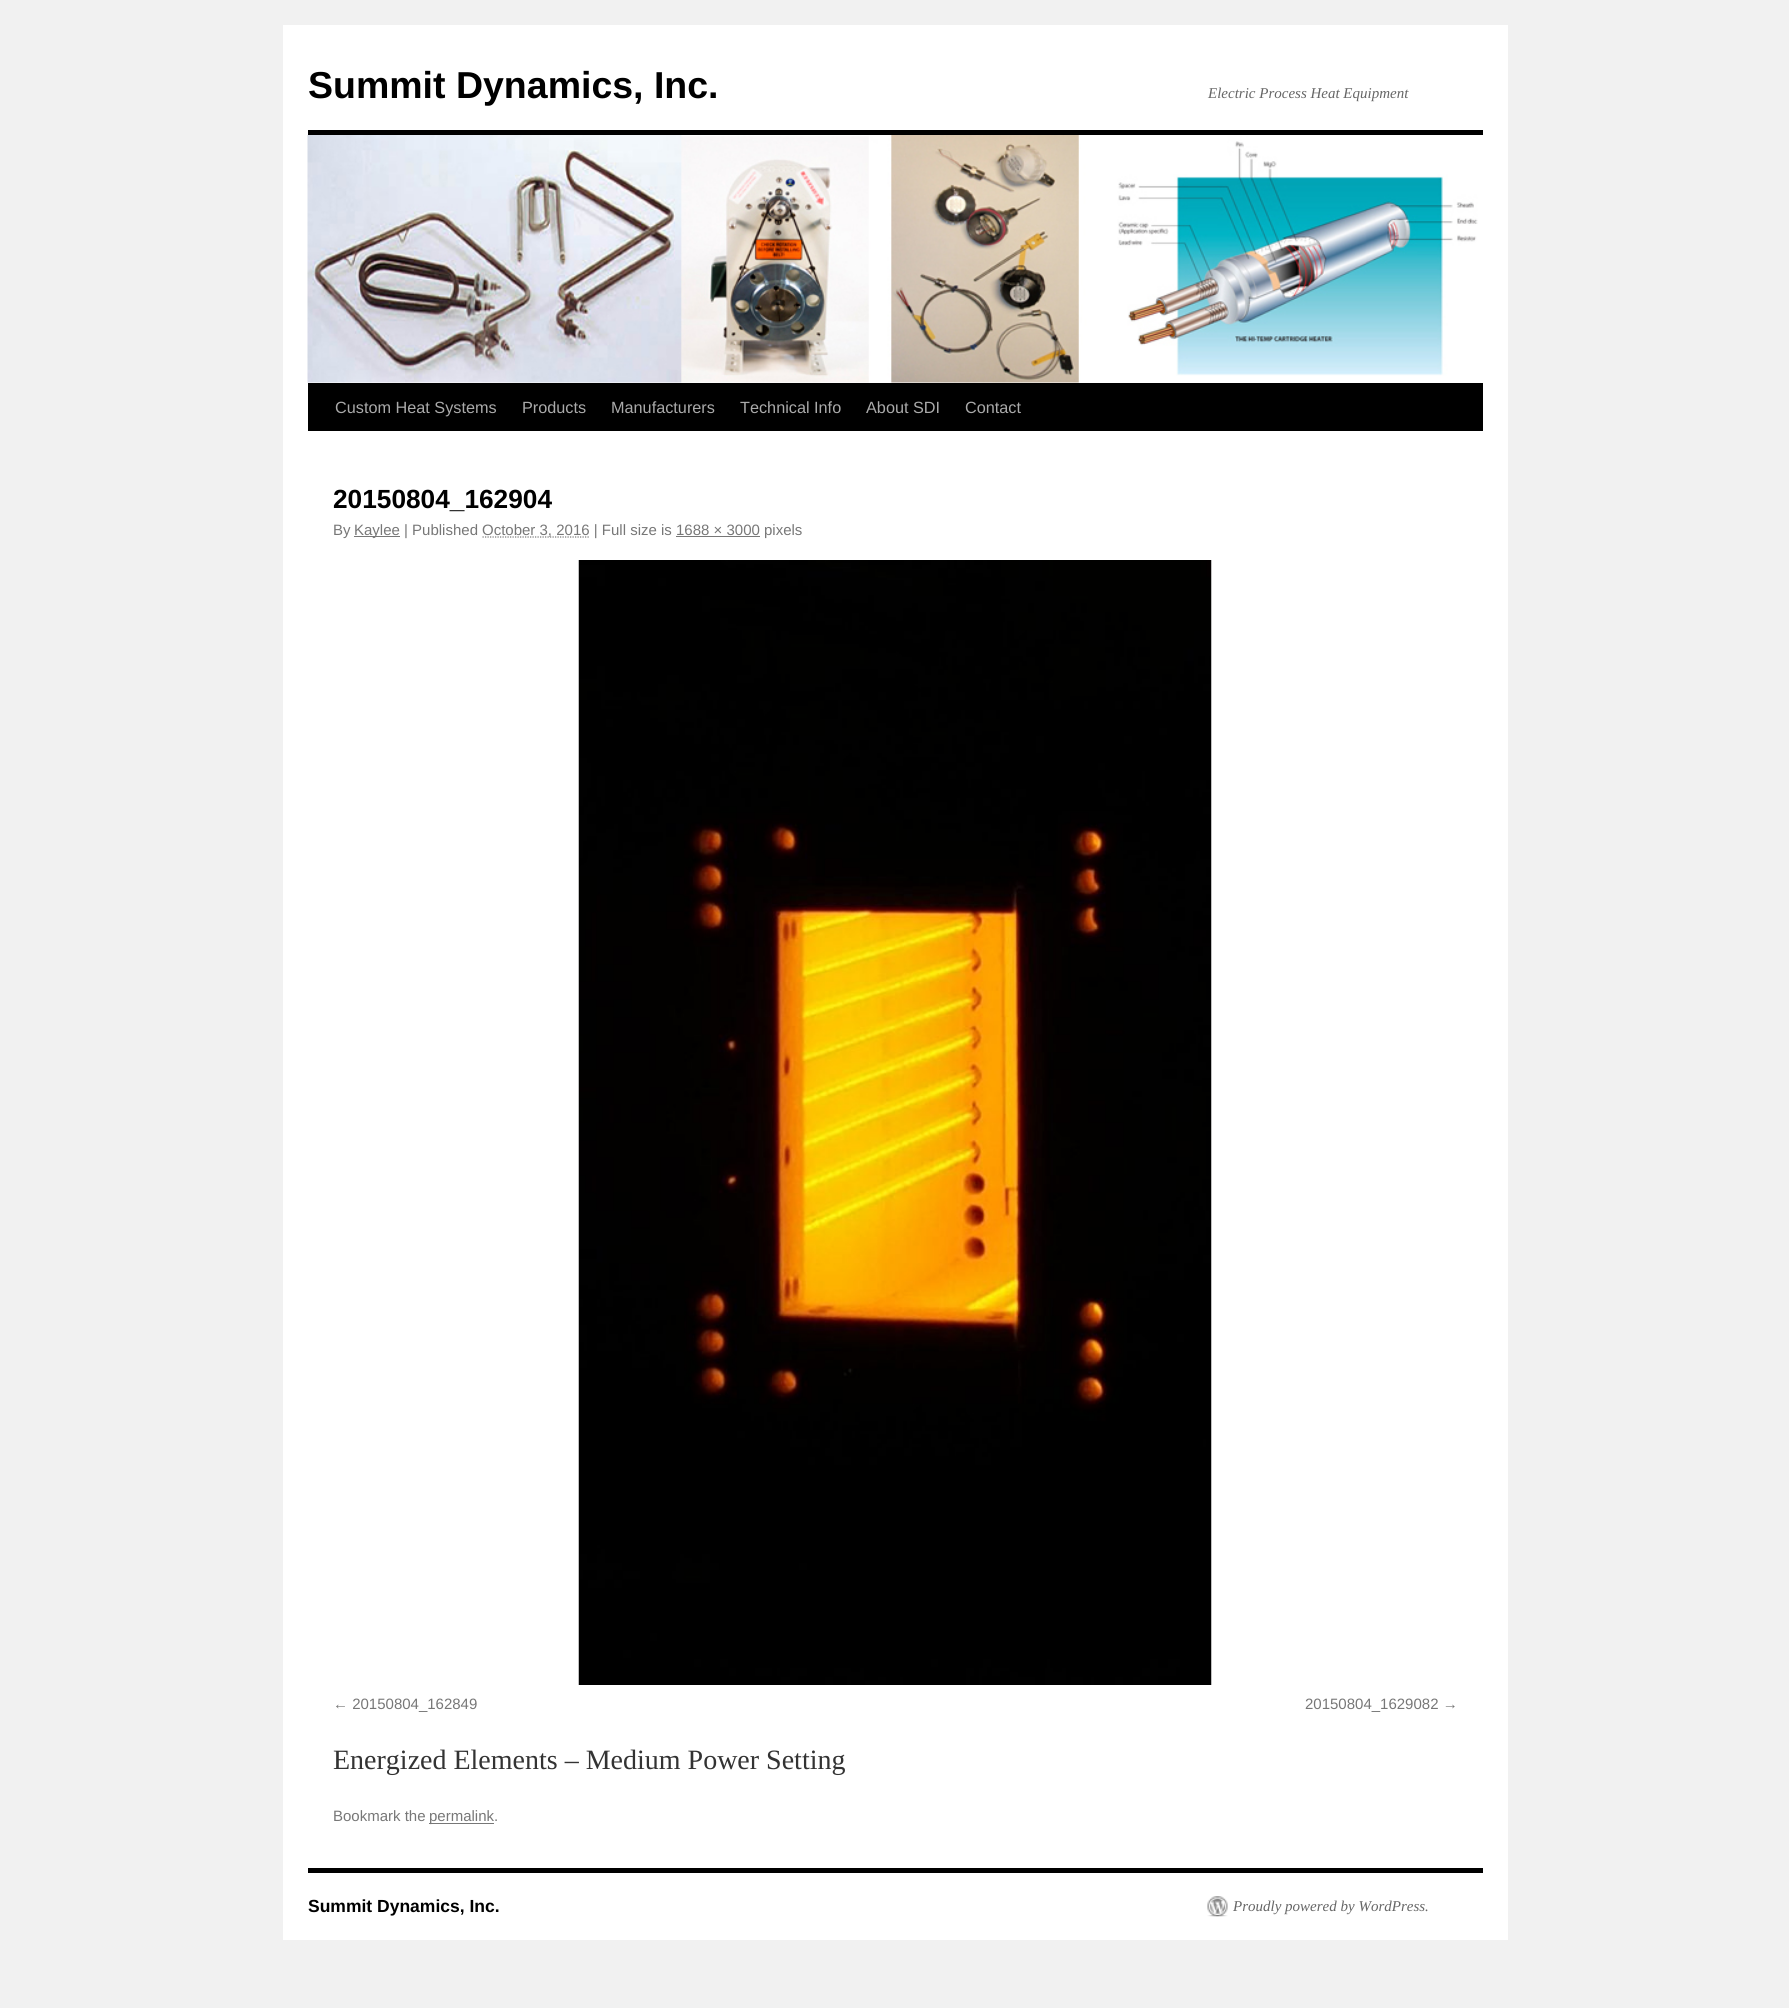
#include <cairo.h>
#include <math.h>
#include <stddef.h>

static cairo_t *ctx;

static void use_color(int r, int g, int b) {
    cairo_set_source_rgb(ctx, r / 255.0, g / 255.0, b / 255.0);
}

static void picture(const char *path, double x, double y, double w, double h) {
    cairo_surface_t *image = cairo_image_surface_create_from_png(path);
    cairo_save(ctx);
    cairo_set_source_surface(ctx, image, x, y);
    cairo_rectangle(ctx, x, y, w, h);
    cairo_fill(ctx);
    cairo_restore(ctx);
    cairo_surface_destroy(image);
}

int main(void) {
    cairo_surface_t *surface = cairo_image_surface_create(CAIRO_FORMAT_RGB24, 1789, 2008);
    ctx = cairo_create(surface);
    cairo_font_options_t *options = cairo_font_options_create();
    cairo_font_options_set_hint_metrics(options, CAIRO_HINT_METRICS_OFF);
    cairo_font_options_set_hint_style(options, CAIRO_HINT_STYLE_NONE);
    cairo_set_font_options(ctx, options);
    cairo_set_miter_limit(ctx, 4);
    use_color(241, 241, 241);
    cairo_paint(ctx);
    use_color(255, 255, 255);
    cairo_rectangle(ctx, 283, 25, 1225, 1915);
    cairo_fill(ctx);
    cairo_select_font_face(ctx, "Liberation Sans", CAIRO_FONT_SLANT_NORMAL, CAIRO_FONT_WEIGHT_BOLD);
    cairo_set_font_size(ctx, 37.5);
    use_color(0, 0, 0);
    cairo_move_to(ctx, 308, 98);
    cairo_show_text(ctx, "Summit Dynamics, Inc.");
    cairo_select_font_face(ctx, "Liberation Serif", CAIRO_FONT_SLANT_ITALIC, CAIRO_FONT_WEIGHT_NORMAL);
    cairo_set_font_size(ctx, 15);
    use_color(102, 102, 102);
    cairo_move_to(ctx, 1208, 98);
    cairo_show_text(ctx, "Electric Process Heat Equipment");
    use_color(0, 0, 0);
    cairo_rectangle(ctx, 308, 130, 1175, 5);
    cairo_fill(ctx);
    cairo_rectangle(ctx, 308, 383, 1175, 48);
    cairo_fill(ctx);
    picture("img1.png", 307, 135, 1171, 248);
    cairo_select_font_face(ctx, "Liberation Sans", CAIRO_FONT_SLANT_NORMAL, CAIRO_FONT_WEIGHT_NORMAL);
    cairo_set_font_size(ctx, 16.25);
    use_color(170, 170, 170);
    cairo_move_to(ctx, 335, 413);
    cairo_show_text(ctx, "Custom Heat Systems");
    cairo_move_to(ctx, 522, 413);
    cairo_show_text(ctx, "Products");
    cairo_move_to(ctx, 611, 413);
    cairo_show_text(ctx, "Manufacturers");
    cairo_move_to(ctx, 740, 413);
    cairo_show_text(ctx, "Technical Info");
    cairo_move_to(ctx, 866, 413);
    cairo_show_text(ctx, "About SDI");
    cairo_move_to(ctx, 965, 413);
    cairo_show_text(ctx, "Contact");
    cairo_select_font_face(ctx, "Liberation Sans", CAIRO_FONT_SLANT_NORMAL, CAIRO_FONT_WEIGHT_BOLD);
    cairo_set_font_size(ctx, 26.25);
    use_color(0, 0, 0);
    cairo_move_to(ctx, 333, 508);
    cairo_show_text(ctx, "20150804_162904");
    cairo_select_font_face(ctx, "Liberation Sans", CAIRO_FONT_SLANT_NORMAL, CAIRO_FONT_WEIGHT_NORMAL);
    cairo_set_font_size(ctx, 15);
    use_color(119, 119, 119);
    cairo_move_to(ctx, 333, 535);
    cairo_show_text(ctx, "By");
    cairo_rectangle(ctx, 354, 536, 46, 1);
    cairo_fill(ctx);
    cairo_move_to(ctx, 354, 535);
    cairo_show_text(ctx, "Kaylee | Published");
    cairo_new_path(ctx);
    cairo_move_to(ctx, 482.5, 537);
    cairo_line_to(ctx, 590, 537);
    cairo_set_line_width(ctx, 1.2);
    cairo_set_dash(ctx, (double[]){1.25, 1.25}, 2, 0);
    cairo_stroke(ctx);
    cairo_move_to(ctx, 482, 535);
    cairo_show_text(ctx, "October 3, 2016 | Full size is 1688 × 3000 pixels");
    cairo_rectangle(ctx, 676, 536, 84, 1);
    cairo_fill(ctx);
    picture("img2.png", 578, 560, 634, 1125);
    cairo_move_to(ctx, 333, 1709);
    cairo_show_text(ctx, "← 20150804_162849");
    cairo_move_to(ctx, 1305, 1709);
    cairo_show_text(ctx, "20150804_1629082 →");
    cairo_select_font_face(ctx, "Liberation Serif", CAIRO_FONT_SLANT_NORMAL, CAIRO_FONT_WEIGHT_NORMAL);
    cairo_set_font_size(ctx, 28);
    use_color(51, 51, 51);
    cairo_move_to(ctx, 333, 1769);
    cairo_show_text(ctx, "Energized Elements – Medium Power Setting");
    cairo_select_font_face(ctx, "Liberation Sans", CAIRO_FONT_SLANT_NORMAL, CAIRO_FONT_WEIGHT_NORMAL);
    cairo_set_font_size(ctx, 15);
    use_color(119, 119, 119);
    cairo_move_to(ctx, 333, 1821);
    cairo_show_text(ctx, "Bookmark the");
    cairo_rectangle(ctx, 429, 1823, 65, 1);
    cairo_fill(ctx);
    cairo_move_to(ctx, 429, 1821);
    cairo_show_text(ctx, "permalink.");
    use_color(0, 0, 0);
    cairo_rectangle(ctx, 308, 1868, 1175, 5);
    cairo_fill(ctx);
    cairo_select_font_face(ctx, "Liberation Sans", CAIRO_FONT_SLANT_NORMAL, CAIRO_FONT_WEIGHT_BOLD);
    cairo_set_font_size(ctx, 17.5);
    cairo_move_to(ctx, 308, 1912);
    cairo_show_text(ctx, "Summit Dynamics, Inc.");
    picture("img3.png", 1207, 1896, 21, 21);
    cairo_select_font_face(ctx, "Liberation Serif", CAIRO_FONT_SLANT_ITALIC, CAIRO_FONT_WEIGHT_NORMAL);
    cairo_set_font_size(ctx, 15);
    use_color(102, 102, 102);
    cairo_move_to(ctx, 1233, 1911);
    cairo_show_text(ctx, "Proudly powered by WordPress.");
    cairo_surface_write_to_png(surface, "result.png");
    cairo_font_options_destroy(options);
    cairo_destroy(ctx);
    cairo_surface_destroy(surface);
    return 0;
}
